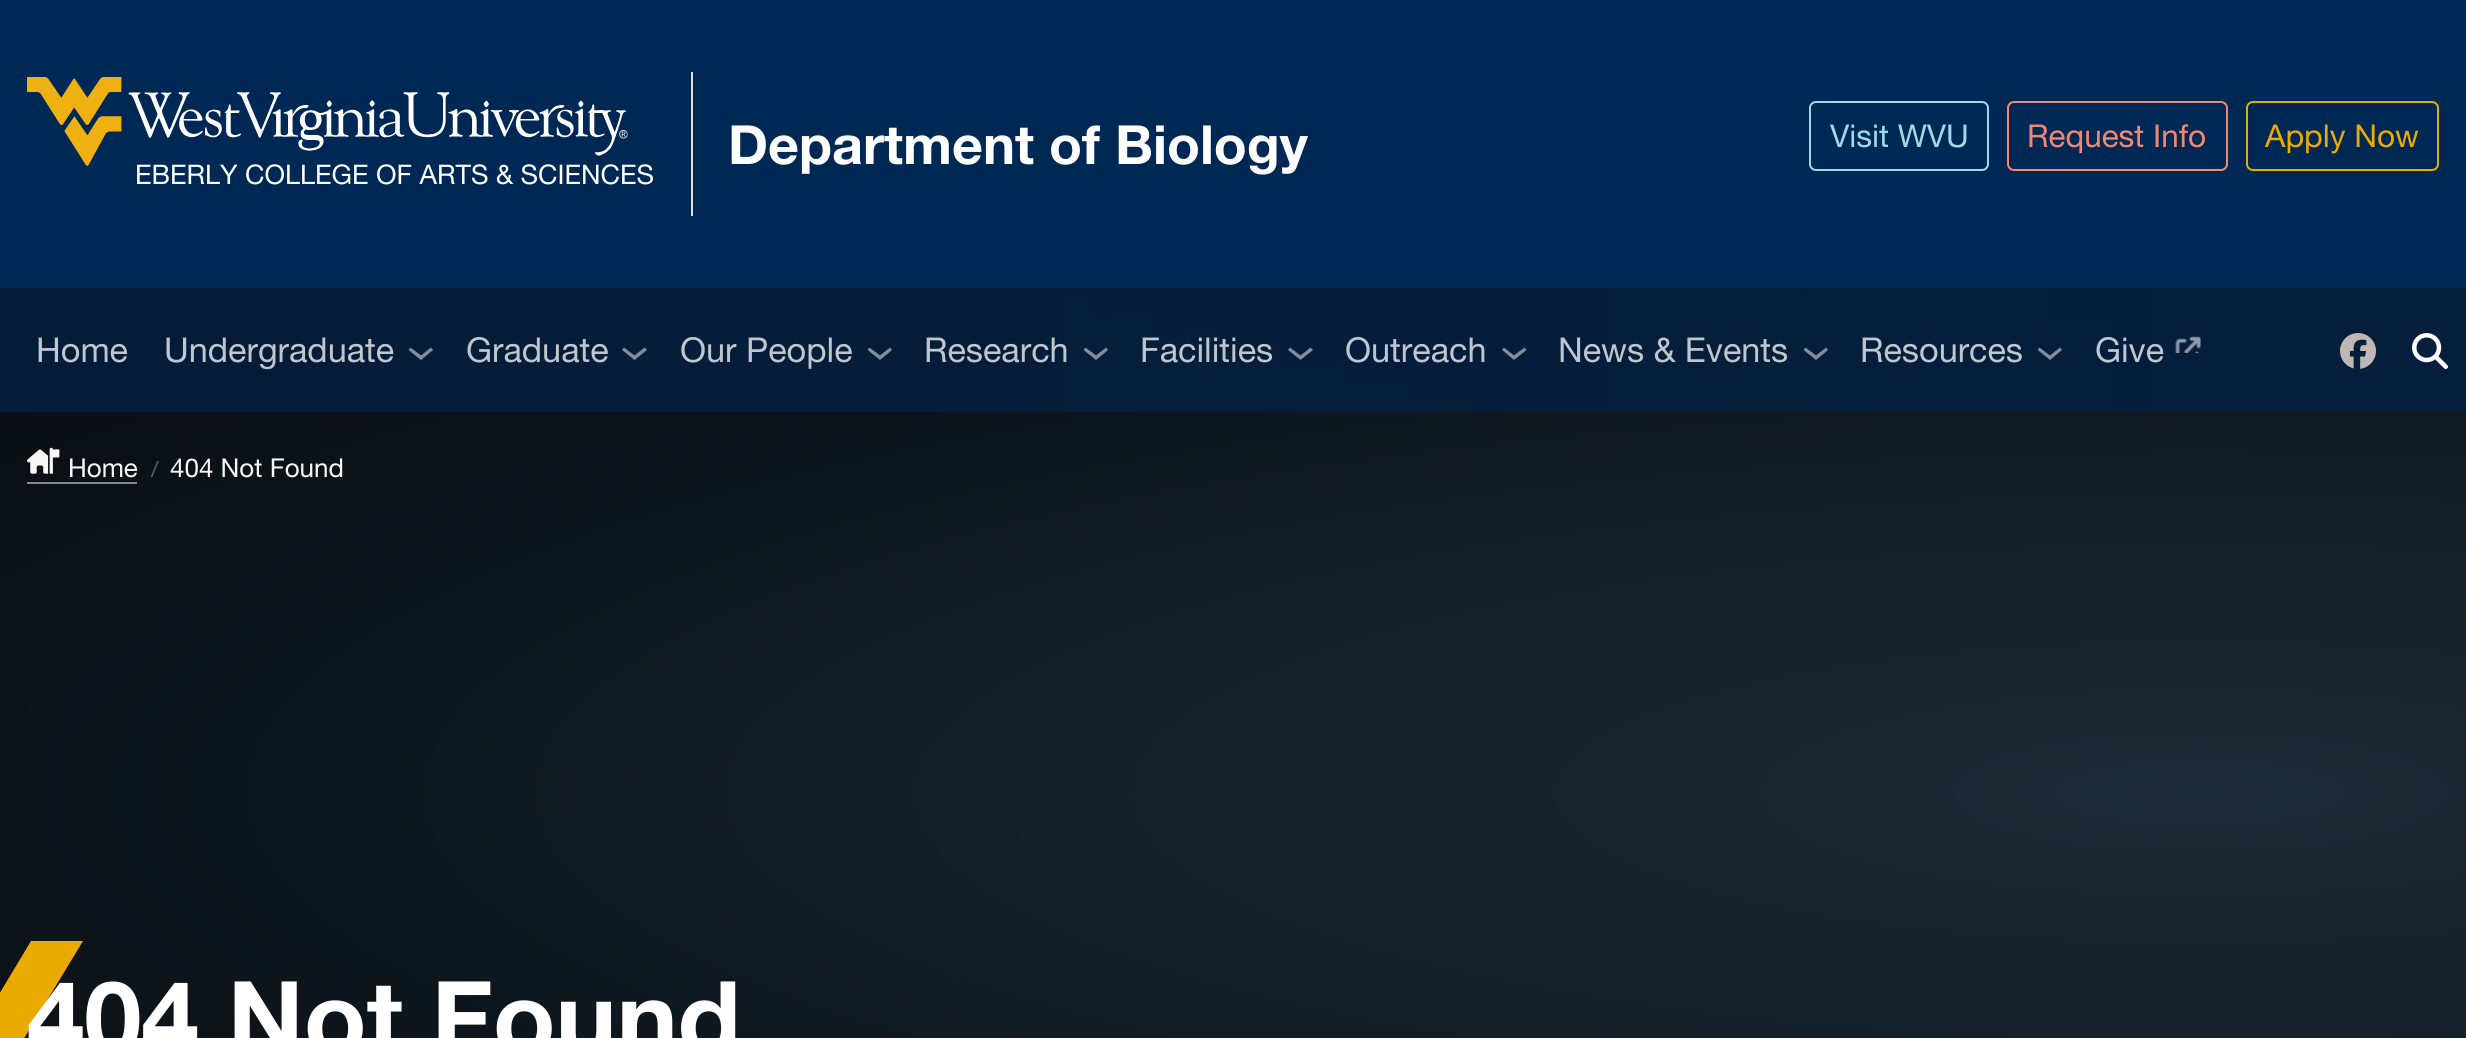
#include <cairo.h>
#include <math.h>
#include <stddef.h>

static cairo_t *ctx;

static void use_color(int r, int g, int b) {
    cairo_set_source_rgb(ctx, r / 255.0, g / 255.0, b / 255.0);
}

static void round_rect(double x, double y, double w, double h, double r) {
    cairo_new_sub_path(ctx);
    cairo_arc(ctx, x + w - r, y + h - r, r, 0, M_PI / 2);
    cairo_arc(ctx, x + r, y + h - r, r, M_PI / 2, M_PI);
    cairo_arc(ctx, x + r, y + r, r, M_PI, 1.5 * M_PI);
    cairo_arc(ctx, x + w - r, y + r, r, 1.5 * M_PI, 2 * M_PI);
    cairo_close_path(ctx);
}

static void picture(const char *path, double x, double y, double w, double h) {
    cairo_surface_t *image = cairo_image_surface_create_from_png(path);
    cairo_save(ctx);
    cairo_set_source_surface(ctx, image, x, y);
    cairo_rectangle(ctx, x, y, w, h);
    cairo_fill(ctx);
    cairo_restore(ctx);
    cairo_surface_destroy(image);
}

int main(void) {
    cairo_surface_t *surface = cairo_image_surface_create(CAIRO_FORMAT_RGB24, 2466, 1038);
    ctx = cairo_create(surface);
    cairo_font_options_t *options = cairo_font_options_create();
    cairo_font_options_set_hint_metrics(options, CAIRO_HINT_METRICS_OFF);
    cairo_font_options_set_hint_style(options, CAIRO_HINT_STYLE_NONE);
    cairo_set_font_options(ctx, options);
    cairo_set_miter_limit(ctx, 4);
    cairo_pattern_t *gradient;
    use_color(0, 40, 85);
    cairo_paint(ctx);
    picture("img1.png", 27, 77, 601, 89);
    cairo_select_font_face(ctx, "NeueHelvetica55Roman", CAIRO_FONT_SLANT_NORMAL, CAIRO_FONT_WEIGHT_NORMAL);
    cairo_set_font_size(ctx, 27);
    use_color(255, 255, 255);
    cairo_move_to(ctx, 135, 184);
    cairo_show_text(ctx, "EBERLY COLLEGE OF ARTS & SCIENCES");
    use_color(222, 226, 230);
    cairo_rectangle(ctx, 691, 72, 2, 144);
    cairo_fill(ctx);
    cairo_select_font_face(ctx, "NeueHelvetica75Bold", CAIRO_FONT_SLANT_NORMAL, CAIRO_FONT_WEIGHT_BOLD);
    cairo_set_font_size(ctx, 54);
    use_color(255, 255, 255);
    cairo_move_to(ctx, 728, 164);
    cairo_show_text(ctx, "Department of Biology");
    round_rect(1810, 102, 178, 68, 6);
    use_color(157, 218, 230);
    cairo_stroke(ctx);
    cairo_select_font_face(ctx, "NeueHelvetica55Roman", CAIRO_FONT_SLANT_NORMAL, CAIRO_FONT_WEIGHT_NORMAL);
    cairo_set_font_size(ctx, 31.5);
    cairo_move_to(ctx, 1830, 147);
    cairo_show_text(ctx, "Visit WVU");
    round_rect(2008, 102, 219, 68, 6);
    use_color(245, 134, 114);
    cairo_stroke(ctx);
    cairo_move_to(ctx, 2027, 147);
    cairo_show_text(ctx, "Request Info");
    round_rect(2247, 102, 191, 68, 6);
    use_color(234, 170, 0);
    cairo_stroke(ctx);
    cairo_move_to(ctx, 2265, 147);
    cairo_show_text(ctx, "Apply Now");
    gradient = cairo_pattern_create_radial(0, 0, 0, 0, 0, 1);
    cairo_pattern_set_matrix(gradient, &(cairo_matrix_t){1.0 / 2907, 0, 0, 1.0 / 660, -1.0 * 2219 / 2907, -1.0 * 792 / 660});
    cairo_pattern_add_color_stop_rgba(gradient, 0, 0.11, 0.169, 0.22, 1);
    cairo_pattern_add_color_stop_rgba(gradient, 1, 0.031, 0.051, 0.067, 1);
    cairo_set_source(ctx, gradient);
    cairo_pattern_destroy(gradient);
    cairo_rectangle(ctx, 0, 288, 2466, 750);
    cairo_fill(ctx);
    gradient = cairo_pattern_create_linear(2466, 350, 0, 350);
    cairo_pattern_add_color_stop_rgba(gradient, 0, 0.016, 0.118, 0.235, 1);
    cairo_pattern_add_color_stop_rgba(gradient, 0.66, 0.016, 0.118, 0.235, 0.9);
    cairo_pattern_add_color_stop_rgba(gradient, 1, 0.016, 0.118, 0.235, 0.9);
    cairo_set_source(ctx, gradient);
    cairo_pattern_destroy(gradient);
    cairo_rectangle(ctx, 0, 288, 2466, 124);
    cairo_fill(ctx);
    cairo_set_font_size(ctx, 34.25);
    use_color(192, 198, 205);
    cairo_move_to(ctx, 36, 362);
    cairo_show_text(ctx, "Home");
    cairo_move_to(ctx, 164, 362);
    cairo_show_text(ctx, "Undergraduate");
    use_color(130, 142, 156);
    cairo_new_path(ctx);
    cairo_move_to(ctx, 433, 350);
    cairo_line_to(ctx, 421, 360);
    cairo_line_to(ctx, 408.5, 350);
    cairo_line_to(ctx, 410.5, 347.5);
    cairo_line_to(ctx, 421, 355.5);
    cairo_line_to(ctx, 431, 347.5);
    cairo_close_path(ctx);
    cairo_fill(ctx);
    use_color(192, 198, 205);
    cairo_move_to(ctx, 466, 362);
    cairo_show_text(ctx, "Graduate");
    use_color(130, 142, 156);
    cairo_new_path(ctx);
    cairo_move_to(ctx, 647, 350);
    cairo_line_to(ctx, 634.5, 360);
    cairo_line_to(ctx, 622, 350);
    cairo_line_to(ctx, 624, 347.5);
    cairo_line_to(ctx, 634.5, 355.5);
    cairo_line_to(ctx, 644.5, 347.5);
    cairo_close_path(ctx);
    cairo_fill(ctx);
    use_color(192, 198, 205);
    cairo_move_to(ctx, 680, 362);
    cairo_show_text(ctx, "Our People");
    use_color(130, 142, 156);
    cairo_new_path(ctx);
    cairo_move_to(ctx, 892, 350);
    cairo_line_to(ctx, 880, 360);
    cairo_line_to(ctx, 867.5, 350);
    cairo_line_to(ctx, 869.5, 347.5);
    cairo_line_to(ctx, 880, 355.5);
    cairo_line_to(ctx, 890, 347.5);
    cairo_close_path(ctx);
    cairo_fill(ctx);
    use_color(192, 198, 205);
    cairo_move_to(ctx, 924, 362);
    cairo_show_text(ctx, "Research");
    use_color(130, 142, 156);
    cairo_new_path(ctx);
    cairo_move_to(ctx, 1108, 350);
    cairo_line_to(ctx, 1096, 360);
    cairo_line_to(ctx, 1083.5, 350);
    cairo_line_to(ctx, 1085.5, 347.5);
    cairo_line_to(ctx, 1096, 355.5);
    cairo_line_to(ctx, 1106, 347.5);
    cairo_close_path(ctx);
    cairo_fill(ctx);
    use_color(192, 198, 205);
    cairo_move_to(ctx, 1140, 362);
    cairo_show_text(ctx, "Facilities");
    use_color(130, 142, 156);
    cairo_new_path(ctx);
    cairo_move_to(ctx, 1313, 350);
    cairo_line_to(ctx, 1300.5, 360);
    cairo_line_to(ctx, 1288, 350);
    cairo_line_to(ctx, 1290, 347.5);
    cairo_line_to(ctx, 1300.5, 355.5);
    cairo_line_to(ctx, 1310.5, 347.5);
    cairo_close_path(ctx);
    cairo_fill(ctx);
    use_color(192, 198, 205);
    cairo_move_to(ctx, 1345, 362);
    cairo_show_text(ctx, "Outreach");
    use_color(130, 142, 157);
    cairo_new_path(ctx);
    cairo_move_to(ctx, 1526.5, 350);
    cairo_line_to(ctx, 1514, 360);
    cairo_line_to(ctx, 1502, 350);
    cairo_line_to(ctx, 1504, 347.5);
    cairo_line_to(ctx, 1514, 355.5);
    cairo_line_to(ctx, 1524.5, 347.5);
    cairo_close_path(ctx);
    cairo_fill(ctx);
    use_color(192, 198, 205);
    cairo_move_to(ctx, 1558, 362);
    cairo_show_text(ctx, "News & Events");
    use_color(130, 142, 157);
    cairo_new_path(ctx);
    cairo_move_to(ctx, 1828, 350);
    cairo_line_to(ctx, 1816, 360);
    cairo_line_to(ctx, 1803.5, 350);
    cairo_line_to(ctx, 1805.5, 347.5);
    cairo_line_to(ctx, 1816, 355.5);
    cairo_line_to(ctx, 1826, 347.5);
    cairo_close_path(ctx);
    cairo_fill(ctx);
    use_color(192, 198, 205);
    cairo_move_to(ctx, 1860, 362);
    cairo_show_text(ctx, "Resources");
    use_color(130, 142, 157);
    cairo_new_path(ctx);
    cairo_move_to(ctx, 2062, 350);
    cairo_line_to(ctx, 2050, 360);
    cairo_line_to(ctx, 2037.5, 350);
    cairo_line_to(ctx, 2039.5, 347.5);
    cairo_line_to(ctx, 2050, 355.5);
    cairo_line_to(ctx, 2060, 347.5);
    cairo_close_path(ctx);
    cairo_fill(ctx);
    use_color(192, 198, 205);
    cairo_move_to(ctx, 2095, 362);
    cairo_show_text(ctx, "Give");
    picture("img2.png", 2175, 336, 26, 17);
    picture("img3.png", 2340, 333, 36, 36);
    picture("img4.png", 2412, 333, 36, 36);
    picture("img5.png", 27, 447, 33, 27);
    cairo_set_font_size(ctx, 26);
    use_color(247, 247, 247);
    cairo_move_to(ctx, 68, 477);
    cairo_show_text(ctx, "Home");
    use_color(133, 136, 138);
    cairo_rectangle(ctx, 27, 482, 110, 2);
    cairo_fill(ctx);
    cairo_set_font_size(ctx, 22);
    use_color(94, 98, 101);
    cairo_move_to(ctx, 151, 477);
    cairo_show_text(ctx, "/");
    cairo_set_font_size(ctx, 26);
    use_color(247, 247, 247);
    cairo_move_to(ctx, 170, 477);
    cairo_show_text(ctx, "404 Not Found");
    use_color(234, 170, 0);
    cairo_new_path(ctx);
    cairo_move_to(ctx, 31, 941);
    cairo_line_to(ctx, 83, 941);
    cairo_line_to(ctx, -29, 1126);
    cairo_line_to(ctx, -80, 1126);
    cairo_close_path(ctx);
    cairo_fill(ctx);
    cairo_select_font_face(ctx, "NeueHelvetica75Bold", CAIRO_FONT_SLANT_NORMAL, CAIRO_FONT_WEIGHT_BOLD);
    cairo_set_font_size(ctx, 103);
    use_color(255, 255, 255);
    cairo_move_to(ctx, 27, 1055);
    cairo_show_text(ctx, "404 Not Found");
    cairo_surface_write_to_png(surface, "result.png");
    cairo_font_options_destroy(options);
    cairo_destroy(ctx);
    cairo_surface_destroy(surface);
    return 0;
}
